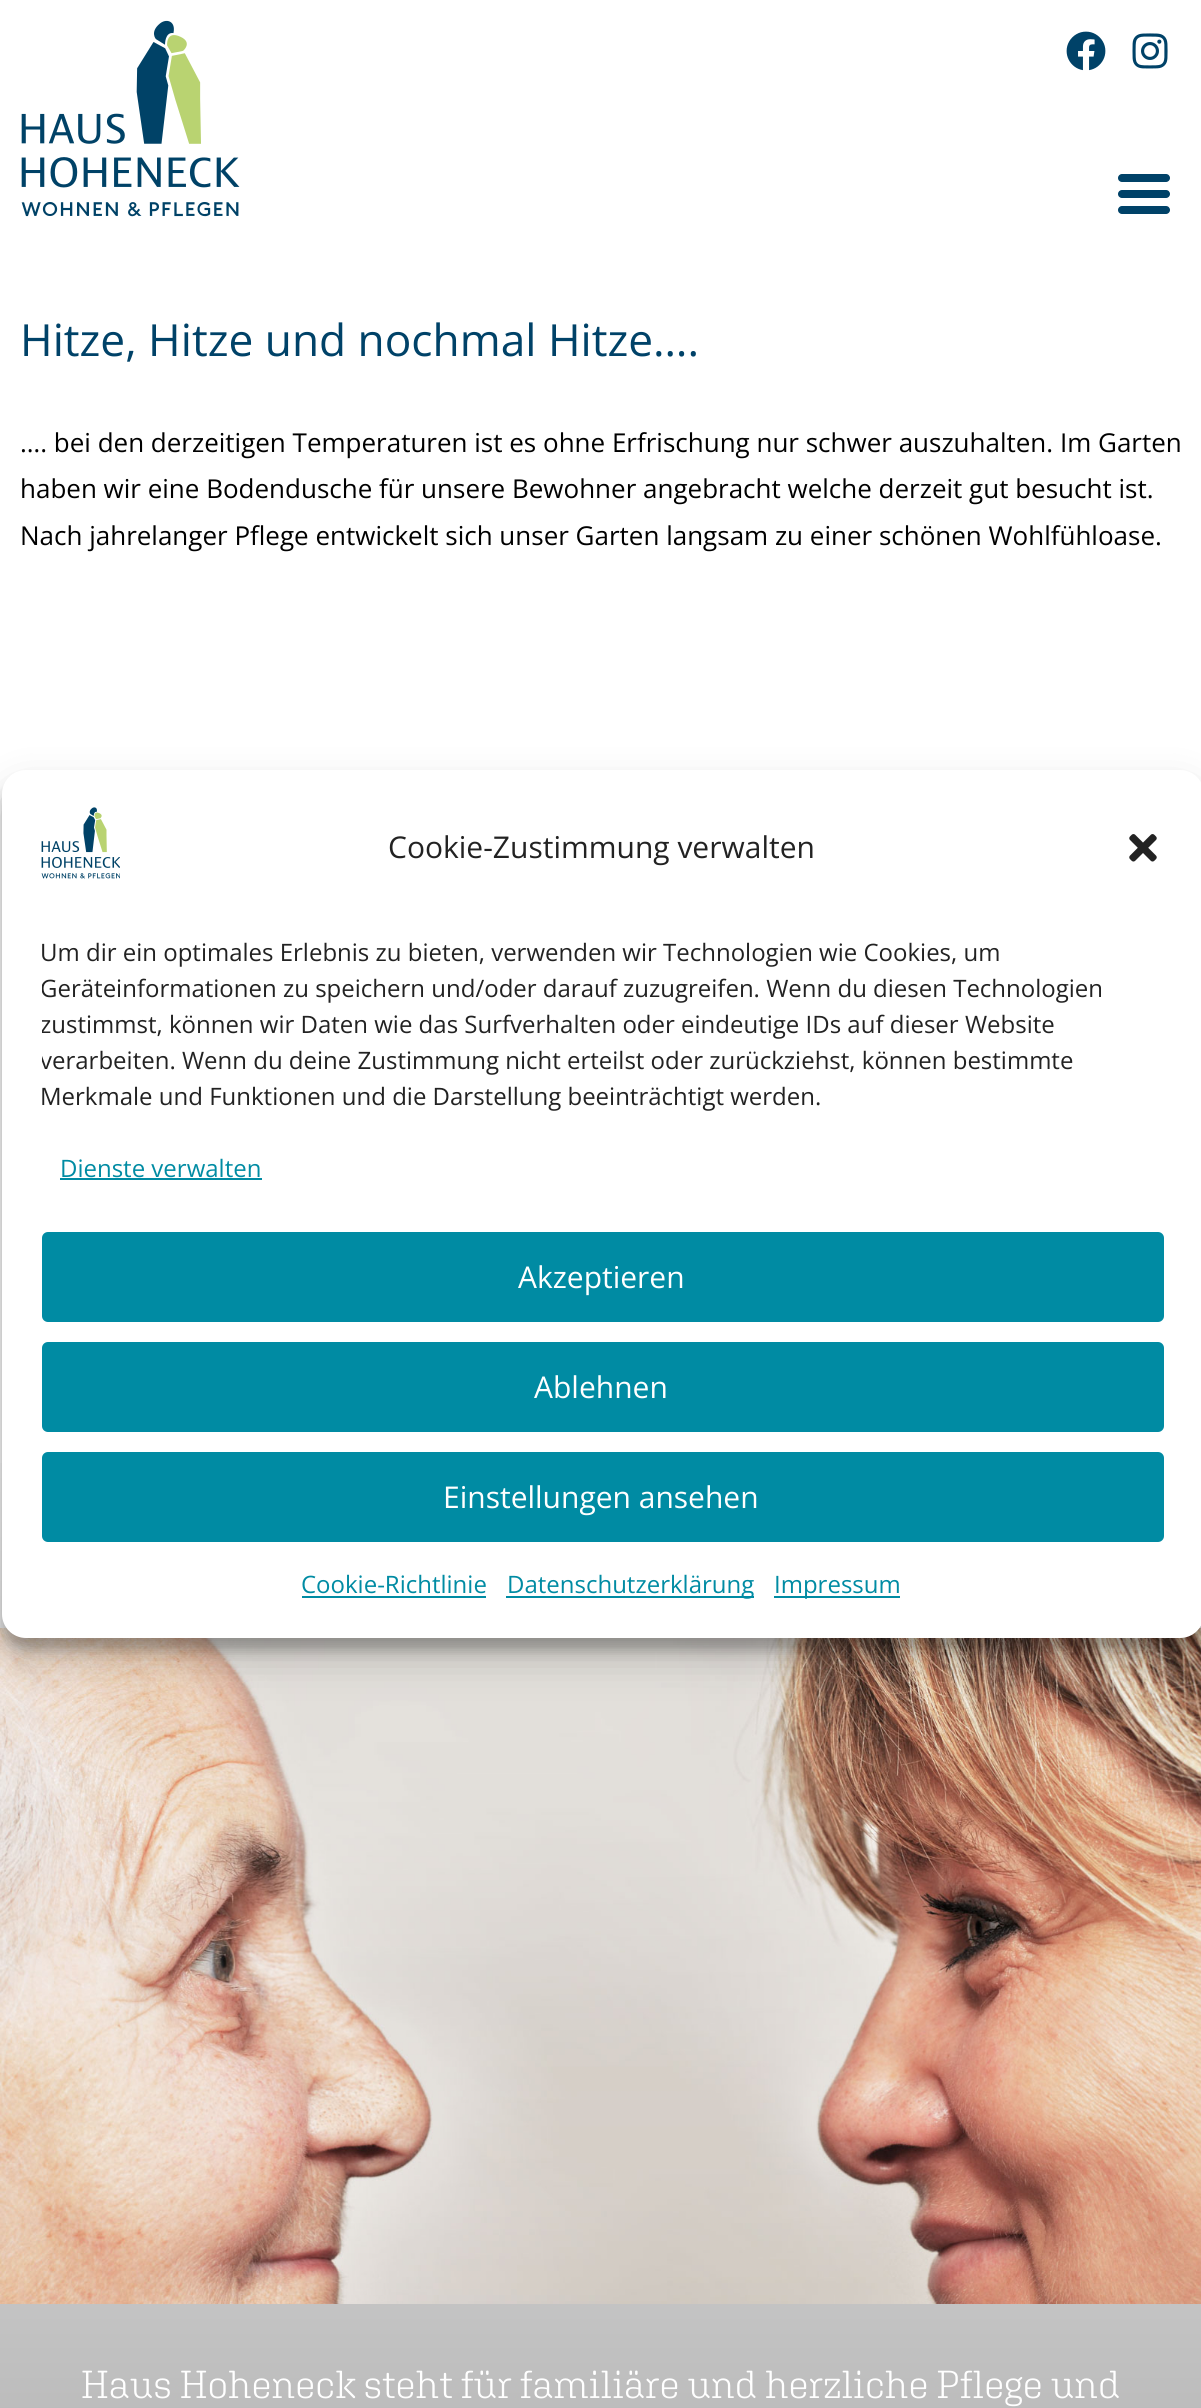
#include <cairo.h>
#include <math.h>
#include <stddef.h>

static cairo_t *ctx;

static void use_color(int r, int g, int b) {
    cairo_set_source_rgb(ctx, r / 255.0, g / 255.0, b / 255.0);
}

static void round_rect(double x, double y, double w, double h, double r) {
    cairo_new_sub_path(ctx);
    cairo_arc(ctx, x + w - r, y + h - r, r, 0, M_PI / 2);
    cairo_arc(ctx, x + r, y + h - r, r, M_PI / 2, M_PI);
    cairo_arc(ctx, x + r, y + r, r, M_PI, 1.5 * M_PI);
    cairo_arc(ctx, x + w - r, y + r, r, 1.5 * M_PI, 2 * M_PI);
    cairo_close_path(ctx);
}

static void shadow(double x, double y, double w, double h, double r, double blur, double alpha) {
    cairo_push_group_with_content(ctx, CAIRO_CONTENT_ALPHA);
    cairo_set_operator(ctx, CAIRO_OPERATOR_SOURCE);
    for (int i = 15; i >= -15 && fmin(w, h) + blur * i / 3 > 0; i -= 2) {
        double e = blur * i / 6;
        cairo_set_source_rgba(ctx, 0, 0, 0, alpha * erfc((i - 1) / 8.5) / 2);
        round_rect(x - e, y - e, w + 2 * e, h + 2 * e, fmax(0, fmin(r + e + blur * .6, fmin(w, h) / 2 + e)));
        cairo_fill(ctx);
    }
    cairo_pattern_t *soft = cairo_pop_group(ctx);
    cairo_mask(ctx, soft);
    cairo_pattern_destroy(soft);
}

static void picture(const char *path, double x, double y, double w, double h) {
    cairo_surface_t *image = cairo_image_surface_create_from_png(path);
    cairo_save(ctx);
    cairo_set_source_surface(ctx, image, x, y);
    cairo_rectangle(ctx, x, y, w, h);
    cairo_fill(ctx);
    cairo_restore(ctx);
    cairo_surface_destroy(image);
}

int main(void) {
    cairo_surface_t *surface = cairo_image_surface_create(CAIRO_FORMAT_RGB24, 1201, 2408);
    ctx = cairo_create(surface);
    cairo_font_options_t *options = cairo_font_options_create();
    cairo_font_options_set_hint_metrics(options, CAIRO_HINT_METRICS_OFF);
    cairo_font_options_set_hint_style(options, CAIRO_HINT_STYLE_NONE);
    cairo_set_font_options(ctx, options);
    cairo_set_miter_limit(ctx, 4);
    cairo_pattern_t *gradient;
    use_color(255, 255, 255);
    cairo_paint(ctx);
    picture("img1.png", 21, 20, 219, 197);
    picture("img2.png", 1066, 31, 40, 40);
    picture("img3.png", 1132, 33, 36, 36);
    use_color(0, 66, 104);
    round_rect(1118, 190, 52, 8, 4);
    cairo_fill(ctx);
    round_rect(1118, 174, 52, 8, 4);
    cairo_fill(ctx);
    round_rect(1118, 206, 52, 8, 4);
    cairo_fill(ctx);
    cairo_select_font_face(ctx, "Open Sans", CAIRO_FONT_SLANT_NORMAL, CAIRO_FONT_WEIGHT_NORMAL);
    cairo_set_font_size(ctx, 44.25);
    cairo_move_to(ctx, 20, 356);
    cairo_show_text(ctx, "Hitze, Hitze und nochmal Hitze….");
    cairo_set_font_size(ctx, 26);
    use_color(0, 0, 0);
    cairo_move_to(ctx, 20, 452);
    cairo_show_text(ctx, "…. bei den derzeitigen Temperaturen ist es ohne Erfrischung nur schwer auszuhalten. Im Garten");
    cairo_move_to(ctx, 20, 498);
    cairo_show_text(ctx, "haben wir eine Bodendusche für unsere Bewohner angebracht welche derzeit gut besucht ist.");
    cairo_move_to(ctx, 20, 545);
    cairo_show_text(ctx, "Nach jahrelanger Pflege entwickelt sich unser Garten langsam zu einer schönen Wohlfühloase.");
    gradient = cairo_pattern_create_linear(601, 1426, 601, 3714);
    cairo_pattern_add_color_stop_rgba(gradient, 0, 1, 1, 1, 1);
    cairo_pattern_add_color_stop_rgba(gradient, 1, 0.392, 0.392, 0.392, 1);
    cairo_set_source(ctx, gradient);
    cairo_pattern_destroy(gradient);
    cairo_rectangle(ctx, 0, 1463, 1201, 945);
    cairo_fill(ctx);
    picture("img6.png", 0, 1628, 1201, 676);
    use_color(0, 0, 0);
    shadow(2, 782, 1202, 868, 24, 6, 0.23);
    shadow(2, 790, 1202, 868, 24, 20, 0.19);
    use_color(255, 255, 255);
    round_rect(2, 770, 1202, 868, 24);
    cairo_fill(ctx);
    picture("img4.png", 41, 807, 79, 72);
    cairo_set_font_size(ctx, 30);
    use_color(34, 34, 34);
    cairo_move_to(ctx, 388, 858);
    cairo_show_text(ctx, "Cookie-Zustimmung verwalten");
    picture("img5.png", 1129, 834, 28, 28);
    cairo_set_font_size(ctx, 24);
    cairo_move_to(ctx, 40, 961);
    cairo_show_text(ctx, "Um dir ein optimales Erlebnis zu bieten, verwenden wir Technologien wie Cookies, um");
    cairo_save(ctx);
    cairo_rectangle(ctx, 42, 934, 1122, 190);
    cairo_clip(ctx);
    cairo_move_to(ctx, 40, 997);
    cairo_show_text(ctx, "Geräteinformationen zu speichern und/oder darauf zuzugreifen. Wenn du diesen Technologien");
    cairo_move_to(ctx, 40, 1033);
    cairo_show_text(ctx, "zustimmst, können wir Daten wie das Surfverhalten oder eindeutige IDs auf dieser Website");
    cairo_move_to(ctx, 40, 1069);
    cairo_show_text(ctx, "verarbeiten. Wenn du deine Zustimmung nicht erteilst oder zurückziehst, können bestimmte");
    cairo_restore(ctx);
    cairo_move_to(ctx, 40, 1105);
    cairo_show_text(ctx, "Merkmale und Funktionen und die Darstellung beeinträchtigt werden.");
    use_color(0, 139, 163);
    cairo_move_to(ctx, 60, 1177);
    cairo_show_text(ctx, "Dienste verwalten");
    cairo_rectangle(ctx, 60, 1178, 202, 2);
    cairo_fill(ctx);
    round_rect(43, 1233, 1120, 88, 5);
    cairo_fill_preserve(ctx);
    cairo_stroke(ctx);
    cairo_set_font_size(ctx, 30);
    use_color(255, 255, 255);
    cairo_move_to(ctx, 518, 1288);
    cairo_show_text(ctx, "Akzeptieren");
    use_color(0, 139, 163);
    round_rect(43, 1343, 1120, 88, 5);
    cairo_fill_preserve(ctx);
    cairo_stroke(ctx);
    use_color(255, 255, 255);
    cairo_move_to(ctx, 534, 1398);
    cairo_show_text(ctx, "Ablehnen");
    use_color(0, 139, 163);
    round_rect(43, 1453, 1120, 88, 5);
    cairo_fill_preserve(ctx);
    cairo_stroke(ctx);
    use_color(255, 255, 255);
    cairo_move_to(ctx, 443, 1508);
    cairo_show_text(ctx, "Einstellungen ansehen");
    cairo_set_font_size(ctx, 24);
    use_color(0, 139, 163);
    cairo_move_to(ctx, 301, 1593);
    cairo_show_text(ctx, "Cookie-Richtlinie");
    cairo_rectangle(ctx, 302, 1596, 184, 2);
    cairo_fill(ctx);
    cairo_rectangle(ctx, 506, 1596, 248, 2);
    cairo_fill(ctx);
    cairo_move_to(ctx, 507, 1593);
    cairo_show_text(ctx, "Datenschutzerklärung");
    cairo_rectangle(ctx, 774, 1596, 126, 2);
    cairo_fill(ctx);
    cairo_move_to(ctx, 774, 1593);
    cairo_show_text(ctx, "Impressum");
    cairo_select_font_face(ctx, "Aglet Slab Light", CAIRO_FONT_SLANT_NORMAL, CAIRO_FONT_WEIGHT_NORMAL);
    cairo_set_font_size(ctx, 39);
    use_color(255, 255, 255);
    cairo_move_to(ctx, 81, 2398);
    cairo_show_text(ctx, "Haus Hoheneck steht für familiäre und herzliche Pflege und");
    cairo_surface_write_to_png(surface, "result.png");
    cairo_font_options_destroy(options);
    cairo_destroy(ctx);
    cairo_surface_destroy(surface);
    return 0;
}
